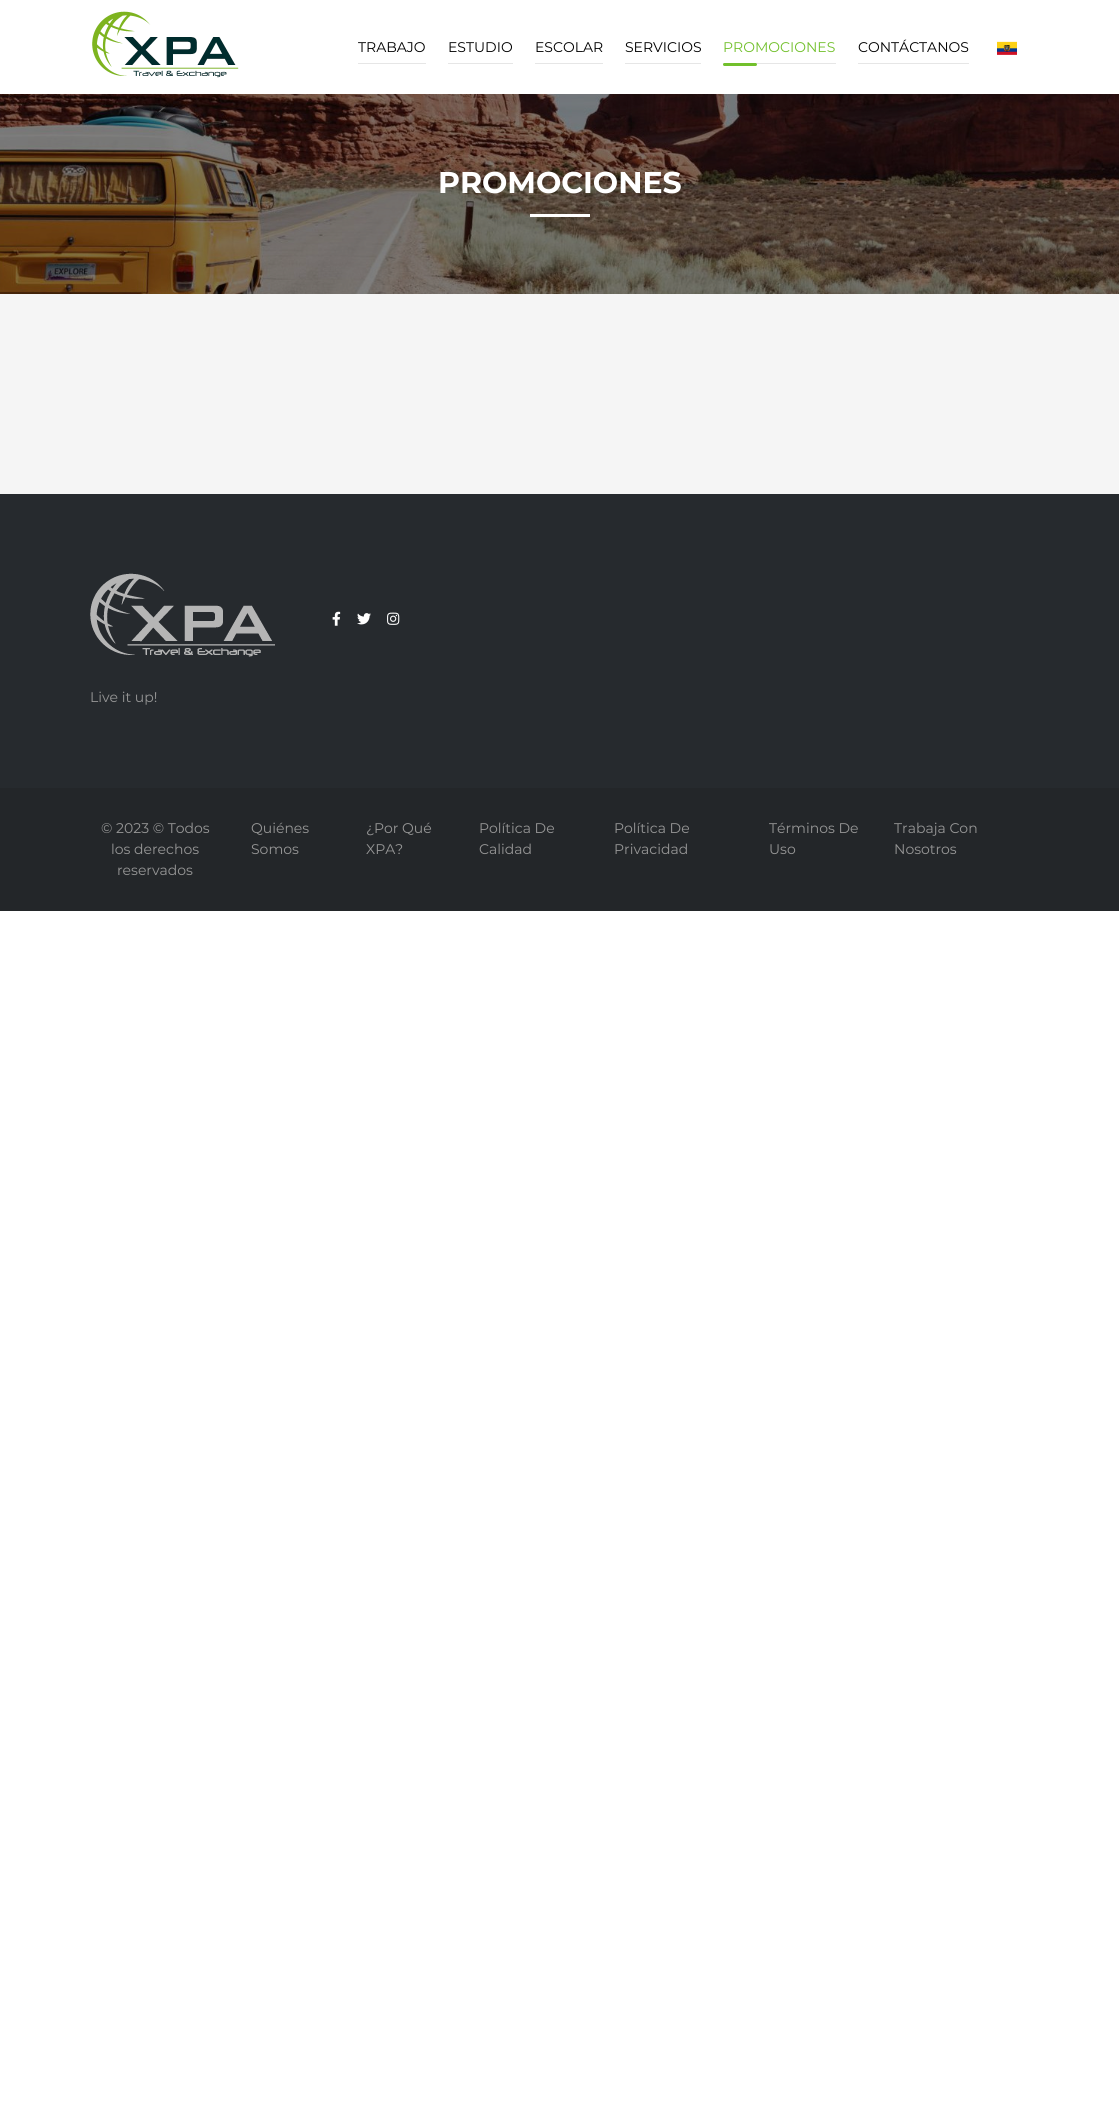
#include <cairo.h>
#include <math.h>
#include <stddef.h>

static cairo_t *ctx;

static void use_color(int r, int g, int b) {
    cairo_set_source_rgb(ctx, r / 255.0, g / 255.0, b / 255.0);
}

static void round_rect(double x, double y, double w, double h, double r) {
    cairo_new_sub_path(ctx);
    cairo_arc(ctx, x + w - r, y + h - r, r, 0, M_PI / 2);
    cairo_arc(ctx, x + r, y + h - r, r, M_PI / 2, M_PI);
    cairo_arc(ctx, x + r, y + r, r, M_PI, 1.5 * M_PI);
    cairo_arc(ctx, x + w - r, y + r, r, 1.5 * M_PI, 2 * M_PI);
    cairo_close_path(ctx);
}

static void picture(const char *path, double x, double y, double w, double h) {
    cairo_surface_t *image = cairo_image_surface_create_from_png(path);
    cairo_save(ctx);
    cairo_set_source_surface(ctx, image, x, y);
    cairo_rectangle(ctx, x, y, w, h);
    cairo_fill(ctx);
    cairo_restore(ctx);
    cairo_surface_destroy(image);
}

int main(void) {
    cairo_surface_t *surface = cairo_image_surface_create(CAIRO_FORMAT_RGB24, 1119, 2112);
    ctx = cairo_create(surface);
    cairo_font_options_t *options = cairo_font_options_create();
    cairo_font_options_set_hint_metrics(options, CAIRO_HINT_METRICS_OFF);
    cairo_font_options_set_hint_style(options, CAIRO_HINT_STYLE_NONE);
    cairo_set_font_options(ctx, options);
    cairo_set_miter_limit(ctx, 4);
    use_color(255, 255, 255);
    cairo_paint(ctx);
    picture("img1.png", 92, 11, 147, 67);
    cairo_select_font_face(ctx, "Montserrat", CAIRO_FONT_SLANT_NORMAL, CAIRO_FONT_WEIGHT_NORMAL);
    cairo_set_font_size(ctx, 14);
    use_color(0, 0, 0);
    cairo_move_to(ctx, 358, 52);
    cairo_show_text(ctx, "TRABAJO");
    use_color(230, 230, 230);
    cairo_rectangle(ctx, 358, 63, 68, 1);
    cairo_fill(ctx);
    use_color(0, 0, 0);
    cairo_move_to(ctx, 448, 52);
    cairo_show_text(ctx, "ESTUDIO");
    use_color(230, 230, 230);
    cairo_rectangle(ctx, 448, 63, 65, 1);
    cairo_fill(ctx);
    use_color(0, 0, 0);
    cairo_move_to(ctx, 535, 52);
    cairo_show_text(ctx, "ESCOLAR");
    use_color(230, 230, 230);
    cairo_rectangle(ctx, 535, 63, 68, 1);
    cairo_fill(ctx);
    use_color(0, 0, 0);
    cairo_move_to(ctx, 625, 52);
    cairo_show_text(ctx, "SERVICIOS");
    use_color(230, 230, 230);
    cairo_rectangle(ctx, 625, 63, 76, 1);
    cairo_fill(ctx);
    use_color(114, 192, 44);
    cairo_move_to(ctx, 723, 52);
    cairo_show_text(ctx, "PROMOCIONES");
    use_color(230, 230, 230);
    cairo_rectangle(ctx, 723, 63, 113, 1);
    cairo_fill(ctx);
    use_color(114, 192, 44);
    round_rect(723, 63, 34, 3, 1.5);
    cairo_fill(ctx);
    use_color(0, 0, 0);
    cairo_move_to(ctx, 858, 52);
    cairo_show_text(ctx, "CONTÁCTANOS");
    use_color(230, 230, 230);
    cairo_rectangle(ctx, 858, 63, 111, 1);
    cairo_fill(ctx);
    picture("img2.png", 997, 41, 20, 14);
    picture("img3.png", 0, 94, 1119, 200);
    cairo_select_font_face(ctx, "Montserrat", CAIRO_FONT_SLANT_NORMAL, CAIRO_FONT_WEIGHT_BOLD);
    cairo_set_font_size(ctx, 30);
    use_color(255, 255, 255);
    cairo_move_to(ctx, 438, 193);
    cairo_show_text(ctx, "PROMOCIONES");
    cairo_rectangle(ctx, 530, 214, 60, 3);
    cairo_fill(ctx);
    use_color(245, 245, 245);
    cairo_rectangle(ctx, 0, 294, 1119, 200);
    cairo_fill(ctx);
    use_color(38, 42, 46);
    cairo_rectangle(ctx, 0, 494, 1119, 294);
    cairo_fill(ctx);
    picture("img4.png", 332, 611, 9, 15);
    picture("img5.png", 357, 613, 14, 12);
    picture("img6.png", 387, 612, 13, 13);
    picture("img7.png", 90, 573, 185, 84);
    cairo_select_font_face(ctx, "Montserrat", CAIRO_FONT_SLANT_NORMAL, CAIRO_FONT_WEIGHT_NORMAL);
    cairo_set_font_size(ctx, 14);
    use_color(150, 150, 150);
    cairo_move_to(ctx, 90, 702);
    cairo_show_text(ctx, "Live it up!");
    use_color(35, 38, 41);
    cairo_rectangle(ctx, 0, 788, 1119, 123);
    cairo_fill(ctx);
    use_color(150, 150, 150);
    cairo_move_to(ctx, 101, 833);
    cairo_show_text(ctx, "© 2023 © Todos");
    cairo_move_to(ctx, 111, 854);
    cairo_show_text(ctx, "los derechos");
    cairo_move_to(ctx, 117, 875);
    cairo_show_text(ctx, "reservados");
    cairo_move_to(ctx, 251, 833);
    cairo_show_text(ctx, "Quiénes");
    cairo_move_to(ctx, 251, 854);
    cairo_show_text(ctx, "Somos");
    cairo_move_to(ctx, 366, 833);
    cairo_show_text(ctx, "¿Por Qué");
    cairo_move_to(ctx, 366, 854);
    cairo_show_text(ctx, "XPA?");
    cairo_move_to(ctx, 479, 833);
    cairo_show_text(ctx, "Política De");
    cairo_move_to(ctx, 479, 854);
    cairo_show_text(ctx, "Calidad");
    cairo_move_to(ctx, 614, 833);
    cairo_show_text(ctx, "Política De");
    cairo_move_to(ctx, 614, 854);
    cairo_show_text(ctx, "Privacidad");
    cairo_move_to(ctx, 769, 833);
    cairo_show_text(ctx, "Términos De");
    cairo_move_to(ctx, 769, 854);
    cairo_show_text(ctx, "Uso");
    cairo_move_to(ctx, 894, 833);
    cairo_show_text(ctx, "Trabaja Con");
    cairo_move_to(ctx, 894, 854);
    cairo_show_text(ctx, "Nosotros");
    cairo_surface_write_to_png(surface, "result.png");
    cairo_font_options_destroy(options);
    cairo_destroy(ctx);
    cairo_surface_destroy(surface);
    return 0;
}
